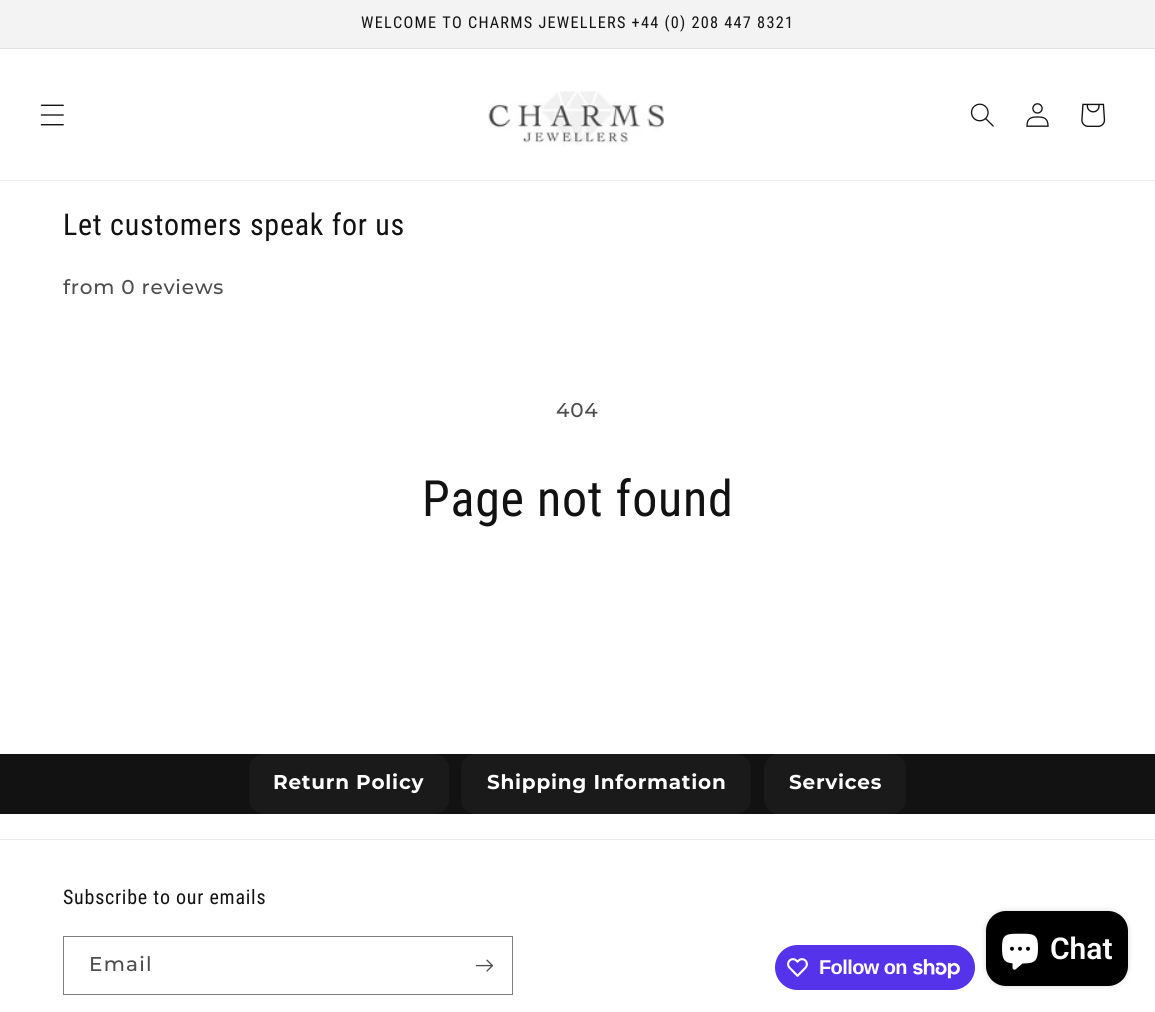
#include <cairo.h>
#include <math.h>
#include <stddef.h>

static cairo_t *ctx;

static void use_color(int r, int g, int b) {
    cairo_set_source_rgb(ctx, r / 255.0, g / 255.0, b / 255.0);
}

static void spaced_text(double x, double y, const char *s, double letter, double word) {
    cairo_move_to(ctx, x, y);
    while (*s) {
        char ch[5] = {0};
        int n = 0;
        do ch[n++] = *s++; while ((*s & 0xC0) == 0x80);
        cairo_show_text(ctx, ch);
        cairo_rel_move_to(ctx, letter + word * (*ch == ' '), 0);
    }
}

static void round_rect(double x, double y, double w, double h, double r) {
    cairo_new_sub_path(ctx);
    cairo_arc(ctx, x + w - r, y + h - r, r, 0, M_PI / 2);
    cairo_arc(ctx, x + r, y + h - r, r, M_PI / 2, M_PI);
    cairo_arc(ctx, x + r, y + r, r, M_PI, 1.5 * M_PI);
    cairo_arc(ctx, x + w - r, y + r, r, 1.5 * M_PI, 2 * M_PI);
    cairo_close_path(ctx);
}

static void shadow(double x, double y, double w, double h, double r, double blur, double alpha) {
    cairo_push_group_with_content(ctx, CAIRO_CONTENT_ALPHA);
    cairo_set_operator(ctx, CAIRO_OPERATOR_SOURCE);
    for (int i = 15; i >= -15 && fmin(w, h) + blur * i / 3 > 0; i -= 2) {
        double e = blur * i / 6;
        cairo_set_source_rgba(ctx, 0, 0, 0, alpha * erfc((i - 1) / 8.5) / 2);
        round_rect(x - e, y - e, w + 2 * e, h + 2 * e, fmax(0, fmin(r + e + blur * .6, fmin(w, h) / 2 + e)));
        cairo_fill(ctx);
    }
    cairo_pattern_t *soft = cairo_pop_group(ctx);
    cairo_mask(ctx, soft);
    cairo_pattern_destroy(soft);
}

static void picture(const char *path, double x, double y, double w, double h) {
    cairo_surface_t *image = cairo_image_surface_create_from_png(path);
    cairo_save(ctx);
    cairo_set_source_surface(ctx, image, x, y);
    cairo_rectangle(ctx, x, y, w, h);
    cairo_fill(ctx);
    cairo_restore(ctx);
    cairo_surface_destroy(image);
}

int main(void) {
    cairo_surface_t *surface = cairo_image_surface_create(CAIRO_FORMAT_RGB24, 1155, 1012);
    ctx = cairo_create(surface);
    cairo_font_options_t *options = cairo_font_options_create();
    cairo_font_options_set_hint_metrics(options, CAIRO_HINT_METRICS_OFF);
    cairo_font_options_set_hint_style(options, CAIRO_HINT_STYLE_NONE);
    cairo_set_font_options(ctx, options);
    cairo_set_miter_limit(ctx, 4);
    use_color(255, 255, 255);
    cairo_paint(ctx);
    use_color(243, 243, 243);
    cairo_rectangle(ctx, 0, 0, 1155, 48);
    cairo_fill(ctx);
    use_color(225, 225, 225);
    cairo_rectangle(ctx, 0, 48, 1155, 1);
    cairo_fill(ctx);
    cairo_select_font_face(ctx, "Roboto Condensed", CAIRO_FONT_SLANT_NORMAL, CAIRO_FONT_WEIGHT_NORMAL);
    cairo_set_font_size(ctx, 16.25);
    use_color(18, 18, 18);
    spaced_text(361, 28, "WELCOME TO CHARMS JEWELLERS +44 (0) 208 447 8321", 1.25, 0);
    use_color(236, 236, 236);
    cairo_rectangle(ctx, 0, 180, 1155, 1);
    cairo_fill(ctx);
    picture("img1.png", 40, 104, 24, 22);
    picture("img2.png", 488, 91, 176, 55);
    picture("img3.png", 970, 103, 24, 24);
    picture("img4.png", 1026, 103, 23, 24);
    picture("img5.png", 1081, 103, 25, 24);
    cairo_set_font_size(ctx, 30);
    use_color(18, 18, 18);
    spaced_text(63, 235, "Let customers speak for us", 0.75, 0);
    cairo_select_font_face(ctx, "Montserrat Medium", CAIRO_FONT_SLANT_NORMAL, CAIRO_FONT_WEIGHT_NORMAL);
    cairo_set_font_size(ctx, 20);
    use_color(77, 77, 77);
    spaced_text(63, 294, "from 0 reviews", 0.75, 0);
    spaced_text(556, 417, "404", 0.75, 0);
    cairo_select_font_face(ctx, "Roboto Condensed", CAIRO_FONT_SLANT_NORMAL, CAIRO_FONT_WEIGHT_NORMAL);
    cairo_set_font_size(ctx, 50);
    use_color(18, 18, 18);
    spaced_text(422, 516, "Page not found", 0.75, 0);
    cairo_rectangle(ctx, 0, 754, 1155, 60);
    cairo_fill(ctx);
    use_color(26, 26, 26);
    round_rect(249, 754, 200, 60, 15);
    cairo_fill(ctx);
    cairo_select_font_face(ctx, "Montserrat", CAIRO_FONT_SLANT_NORMAL, CAIRO_FONT_WEIGHT_BOLD);
    cairo_set_font_size(ctx, 20);
    use_color(255, 255, 255);
    spaced_text(273, 789, "Return Policy", 0.75, 0);
    use_color(26, 26, 26);
    round_rect(461, 754, 290, 60, 15);
    cairo_fill(ctx);
    use_color(255, 255, 255);
    spaced_text(487, 789, "Shipping Information", 0.75, 0);
    use_color(26, 26, 26);
    round_rect(764, 754, 142, 60, 15);
    cairo_fill(ctx);
    use_color(255, 255, 255);
    spaced_text(789, 789, "Services", 0.75, 0);
    use_color(236, 236, 236);
    cairo_rectangle(ctx, 0, 839, 1155, 1);
    cairo_fill(ctx);
    cairo_select_font_face(ctx, "Roboto Condensed", CAIRO_FONT_SLANT_NORMAL, CAIRO_FONT_WEIGHT_NORMAL);
    use_color(18, 18, 18);
    spaced_text(63, 904, "Subscribe to our emails", 0.75, 0);
    cairo_rectangle(ctx, 63.5, 936.5, 449, 58);
    use_color(125, 125, 125);
    cairo_set_line_width(ctx, 1);
    cairo_stroke(ctx);
    cairo_select_font_face(ctx, "Montserrat Medium", CAIRO_FONT_SLANT_NORMAL, CAIRO_FONT_WEIGHT_NORMAL);
    use_color(77, 77, 77);
    spaced_text(89, 971, "Email", 1.25, 0);
    picture("img6.png", 475, 959, 18, 13);
    use_color(84, 51, 235);
    round_rect(775, 945, 200, 45, 22.5);
    cairo_fill(ctx);
    picture("img7.png", 787, 958, 21, 19);
    cairo_select_font_face(ctx, "Liberation Sans", CAIRO_FONT_SLANT_NORMAL, CAIRO_FONT_WEIGHT_BOLD);
    use_color(255, 255, 255);
    spaced_text(819, 974, "Follow on", -0.6, 0);
    picture("img8.png", 913, 959, 47, 20);
    use_color(0, 0, 0);
    shadow(986, 911, 142, 75, 20, 3, 0.15);
    use_color(0, 0, 0);
    round_rect(986, 911, 142, 75, 20);
    cairo_fill(ctx);
    picture("img9.png", 1002, 933, 36, 37);
    cairo_select_font_face(ctx, "Roboto SemiBold", CAIRO_FONT_SLANT_NORMAL, CAIRO_FONT_WEIGHT_NORMAL);
    cairo_set_font_size(ctx, 30);
    use_color(255, 255, 255);
    cairo_move_to(ctx, 1050, 959);
    cairo_show_text(ctx, "Chat");
    cairo_surface_write_to_png(surface, "result.png");
    cairo_font_options_destroy(options);
    cairo_destroy(ctx);
    cairo_surface_destroy(surface);
    return 0;
}
